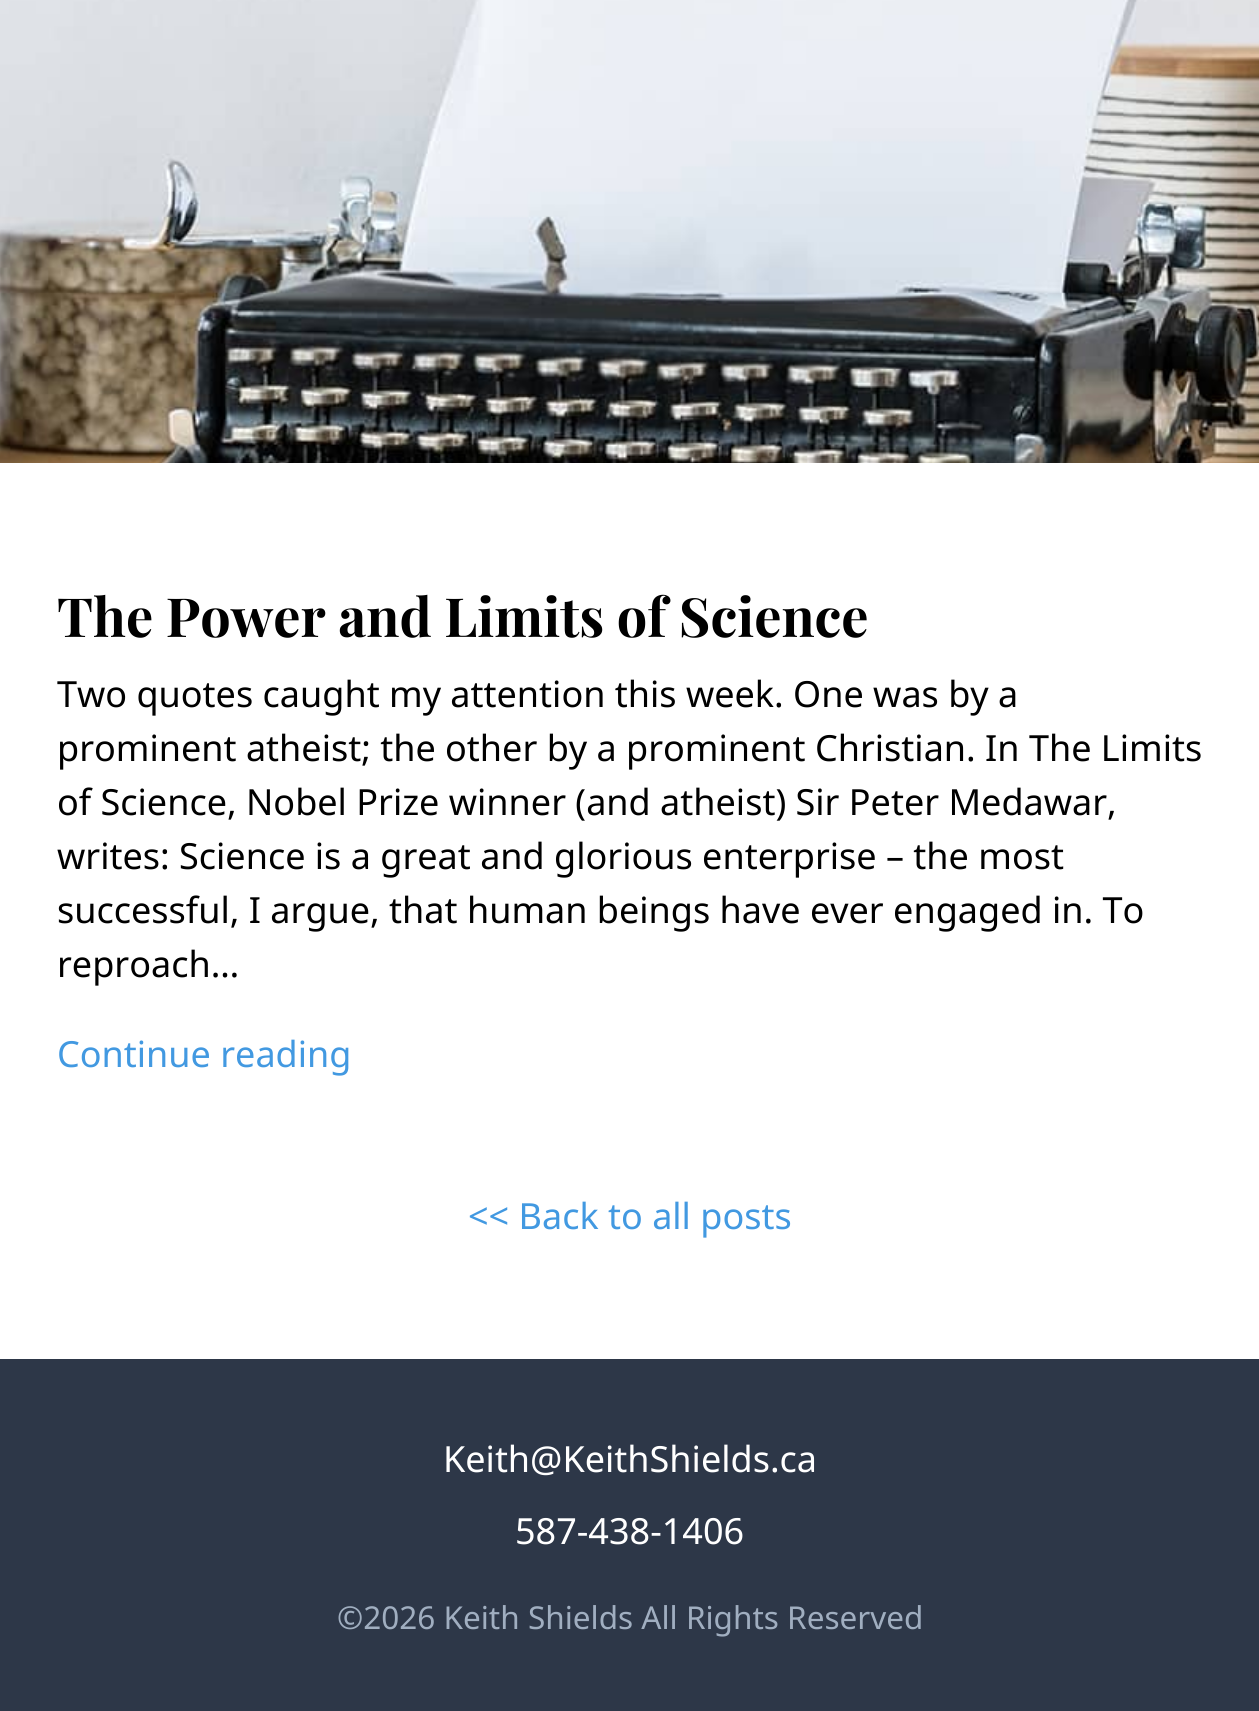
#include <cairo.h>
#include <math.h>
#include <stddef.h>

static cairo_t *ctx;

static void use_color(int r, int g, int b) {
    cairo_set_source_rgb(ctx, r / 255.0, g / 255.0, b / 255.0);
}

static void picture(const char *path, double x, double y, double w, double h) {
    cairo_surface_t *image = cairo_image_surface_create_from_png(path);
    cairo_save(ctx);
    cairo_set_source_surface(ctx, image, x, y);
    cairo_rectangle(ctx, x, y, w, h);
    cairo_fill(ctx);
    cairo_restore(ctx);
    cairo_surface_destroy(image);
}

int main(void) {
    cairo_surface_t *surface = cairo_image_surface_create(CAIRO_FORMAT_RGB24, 1259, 1711);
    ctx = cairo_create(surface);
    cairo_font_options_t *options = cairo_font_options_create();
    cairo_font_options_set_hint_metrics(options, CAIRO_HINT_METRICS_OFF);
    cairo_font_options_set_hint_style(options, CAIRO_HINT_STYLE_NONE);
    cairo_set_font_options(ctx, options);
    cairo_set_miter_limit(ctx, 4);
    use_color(255, 255, 255);
    cairo_paint(ctx);
    picture("img1.png", 0, 0, 1259, 463);
    cairo_select_font_face(ctx, "Playfair Display", CAIRO_FONT_SLANT_NORMAL, CAIRO_FONT_WEIGHT_BOLD);
    cairo_set_font_size(ctx, 54);
    use_color(0, 0, 0);
    cairo_move_to(ctx, 57, 637);
    cairo_show_text(ctx, "The Power and Limits of Science");
    cairo_select_font_face(ctx, "Noto Sans", CAIRO_FONT_SLANT_NORMAL, CAIRO_FONT_WEIGHT_NORMAL);
    cairo_set_font_size(ctx, 36);
    cairo_move_to(ctx, 57, 707);
    cairo_show_text(ctx, "Two quotes caught my attention this week. One was by a");
    cairo_move_to(ctx, 57, 761);
    cairo_show_text(ctx, "prominent atheist; the other by a prominent Christian. In The Limits");
    cairo_move_to(ctx, 57, 815);
    cairo_show_text(ctx, "of Science, Nobel Prize winner (and atheist) Sir Peter Medawar,");
    cairo_move_to(ctx, 57, 869);
    cairo_show_text(ctx, "writes: Science is a great and glorious enterprise – the most");
    cairo_move_to(ctx, 57, 923);
    cairo_show_text(ctx, "successful, I argue, that human beings have ever engaged in. To");
    cairo_move_to(ctx, 57, 977);
    cairo_show_text(ctx, "reproach…");
    use_color(66, 153, 225);
    cairo_move_to(ctx, 57, 1067);
    cairo_show_text(ctx, "Continue reading");
    cairo_move_to(ctx, 468, 1229);
    cairo_show_text(ctx, "<< Back to all posts");
    use_color(45, 55, 72);
    cairo_rectangle(ctx, 0, 1359, 1259, 352);
    cairo_fill(ctx);
    use_color(255, 255, 255);
    cairo_move_to(ctx, 443, 1472);
    cairo_show_text(ctx, "Keith@KeithShields.ca");
    cairo_move_to(ctx, 515, 1544);
    cairo_show_text(ctx, "587-438-1406");
    cairo_set_font_size(ctx, 31.5);
    use_color(160, 174, 192);
    cairo_move_to(ctx, 337, 1629);
    cairo_show_text(ctx, "©2026 Keith Shields All Rights Reserved");
    cairo_surface_write_to_png(surface, "result.png");
    cairo_font_options_destroy(options);
    cairo_destroy(ctx);
    cairo_surface_destroy(surface);
    return 0;
}
